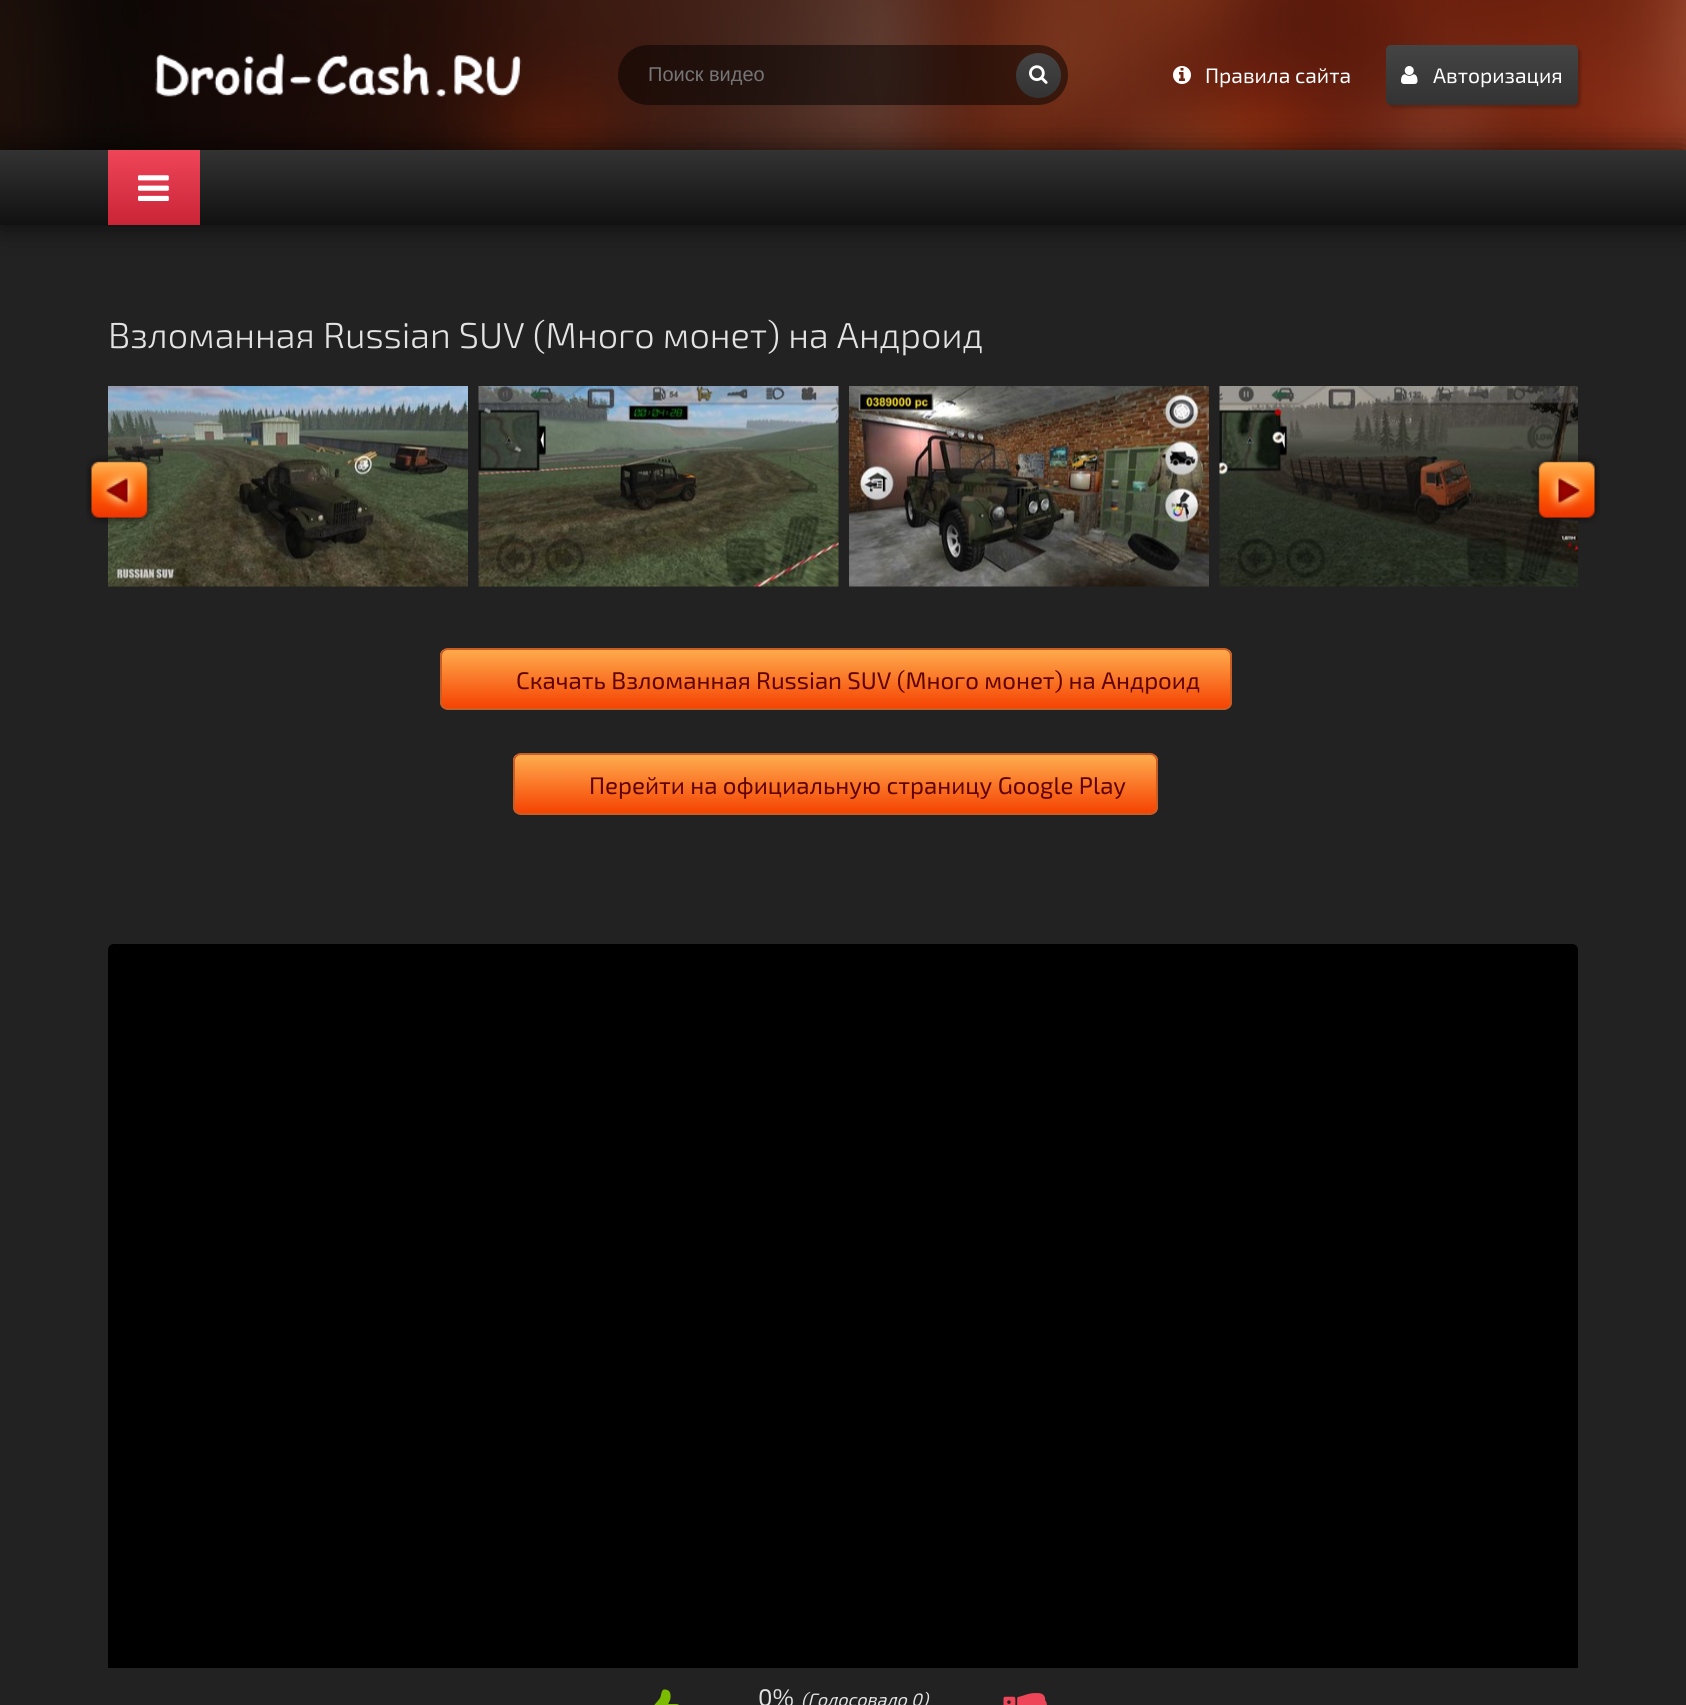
#include <cairo.h>
#include <math.h>
#include <stddef.h>

static cairo_t *ctx;

static void use_color(int r, int g, int b) {
    cairo_set_source_rgb(ctx, r / 255.0, g / 255.0, b / 255.0);
}

static void round_rect(double x, double y, double w, double h, double r) {
    cairo_new_sub_path(ctx);
    cairo_arc(ctx, x + w - r, y + h - r, r, 0, M_PI / 2);
    cairo_arc(ctx, x + r, y + h - r, r, M_PI / 2, M_PI);
    cairo_arc(ctx, x + r, y + r, r, M_PI, 1.5 * M_PI);
    cairo_arc(ctx, x + w - r, y + r, r, 1.5 * M_PI, 2 * M_PI);
    cairo_close_path(ctx);
}

static void shadow(double x, double y, double w, double h, double r, double blur, double alpha) {
    cairo_push_group_with_content(ctx, CAIRO_CONTENT_ALPHA);
    cairo_set_operator(ctx, CAIRO_OPERATOR_SOURCE);
    for (int i = 15; i >= -15 && fmin(w, h) + blur * i / 3 > 0; i -= 2) {
        double e = blur * i / 6;
        cairo_set_source_rgba(ctx, 0, 0, 0, alpha * erfc((i - 1) / 8.5) / 2);
        round_rect(x - e, y - e, w + 2 * e, h + 2 * e, fmax(0, fmin(r + e + blur * .6, fmin(w, h) / 2 + e)));
        cairo_fill(ctx);
    }
    cairo_pattern_t *soft = cairo_pop_group(ctx);
    cairo_mask(ctx, soft);
    cairo_pattern_destroy(soft);
}

static void picture(const char *path, double x, double y, double w, double h) {
    cairo_surface_t *image = cairo_image_surface_create_from_png(path);
    cairo_save(ctx);
    cairo_set_source_surface(ctx, image, x, y);
    cairo_rectangle(ctx, x, y, w, h);
    cairo_fill(ctx);
    cairo_restore(ctx);
    cairo_surface_destroy(image);
}

int main(void) {
    cairo_surface_t *surface = cairo_image_surface_create(CAIRO_FORMAT_RGB24, 1686, 1705);
    ctx = cairo_create(surface);
    cairo_font_options_t *options = cairo_font_options_create();
    cairo_font_options_set_hint_metrics(options, CAIRO_HINT_METRICS_OFF);
    cairo_font_options_set_hint_style(options, CAIRO_HINT_STYLE_NONE);
    cairo_set_font_options(ctx, options);
    cairo_set_miter_limit(ctx, 4);
    cairo_pattern_t *gradient;
    use_color(34, 34, 34);
    cairo_paint(ctx);
    picture("img1.png", 0, 0, 1686, 150);
    picture("img2.png", 155, 52, 367, 45);
    use_color(0, 0, 0);
    shadow(0, 150, 1686, 75, 0, 15, 0.7);
    cairo_set_source_rgba(ctx, 0, 0, 0, 0.5);
    round_rect(618, 45, 450, 60, 30);
    cairo_fill(ctx);
    cairo_select_font_face(ctx, "Liberation Sans", CAIRO_FONT_SLANT_NORMAL, CAIRO_FONT_WEIGHT_NORMAL);
    cairo_set_font_size(ctx, 20);
    use_color(117, 117, 117);
    cairo_move_to(ctx, 648, 81);
    cairo_show_text(ctx, "Поиск видео");
    gradient = cairo_pattern_create_linear(1038, 53, 1038, 98);
    cairo_pattern_add_color_stop_rgba(gradient, 0, 0.267, 0.267, 0.267, 1);
    cairo_pattern_add_color_stop_rgba(gradient, 1, 0.2, 0.2, 0.2, 1);
    cairo_set_source(ctx, gradient);
    cairo_pattern_destroy(gradient);
    cairo_new_path(ctx);
    cairo_arc(ctx, 1038.5, 75.5, 22.5, 0, 2 * M_PI);
    cairo_fill(ctx);
    picture("img3.png", 1029, 65, 19, 19);
    picture("img4.png", 1173, 66, 18, 18);
    cairo_select_font_face(ctx, "Exo 2", CAIRO_FONT_SLANT_NORMAL, CAIRO_FONT_WEIGHT_NORMAL);
    cairo_set_font_size(ctx, 21);
    use_color(255, 255, 255);
    cairo_move_to(ctx, 1205, 83);
    cairo_show_text(ctx, "Правила сайта");
    use_color(0, 0, 0);
    shadow(1389, 48, 192, 60, 5, 1.5, 0.2);
    gradient = cairo_pattern_create_linear(1482, 45, 1482, 105);
    cairo_pattern_add_color_stop_rgba(gradient, 0, 0.267, 0.267, 0.267, 1);
    cairo_pattern_add_color_stop_rgba(gradient, 1, 0.2, 0.2, 0.2, 1);
    cairo_set_source(ctx, gradient);
    cairo_pattern_destroy(gradient);
    round_rect(1386, 45, 192, 60, 5);
    cairo_fill(ctx);
    picture("img5.png", 1401, 66, 17, 18);
    use_color(255, 255, 255);
    cairo_move_to(ctx, 1433, 83);
    cairo_show_text(ctx, "Авторизация");
    gradient = cairo_pattern_create_linear(843, 150, 843, 225);
    cairo_pattern_add_color_stop_rgba(gradient, 0, 0.2, 0.2, 0.2, 1);
    cairo_pattern_add_color_stop_rgba(gradient, 0.5, 0.133, 0.133, 0.133, 1);
    cairo_pattern_add_color_stop_rgba(gradient, 1, 0.067, 0.067, 0.067, 1);
    cairo_set_source(ctx, gradient);
    cairo_pattern_destroy(gradient);
    cairo_rectangle(ctx, 0, 150, 1686, 75);
    cairo_fill(ctx);
    gradient = cairo_pattern_create_linear(154, 150, 154, 225);
    cairo_pattern_add_color_stop_rgba(gradient, 0, 0.937, 0.271, 0.349, 1);
    cairo_pattern_add_color_stop_rgba(gradient, 1, 0.792, 0.141, 0.216, 1);
    cairo_set_source(ctx, gradient);
    cairo_pattern_destroy(gradient);
    cairo_rectangle(ctx, 108, 150, 92, 75);
    cairo_fill(ctx);
    picture("img6.png", 138, 175, 31, 26);
    cairo_select_font_face(ctx, "Exo 2 Light", CAIRO_FONT_SLANT_NORMAL, CAIRO_FONT_WEIGHT_NORMAL);
    cairo_set_font_size(ctx, 36);
    use_color(227, 227, 227);
    cairo_move_to(ctx, 108, 348);
    cairo_show_text(ctx, "Взломанная Russian SUV (Много монет) на Андроид");
    picture("img7.png", 108, 386, 360, 201);
    picture("img8.png", 478, 386, 361, 201);
    picture("img9.png", 849, 386, 360, 201);
    picture("img10.png", 1219, 386, 359, 201);
    picture("img11.png", 86, 454, 69, 71);
    picture("img12.png", 1532, 455, 68, 69);
    cairo_save(ctx);
    round_rect(440, 648, 792, 62, 8);
    cairo_clip(ctx);
    gradient = cairo_pattern_create_linear(836, 649, 836, 708);
    cairo_pattern_add_color_stop_rgba(gradient, 0.05, 0.996, 0.655, 0.29, 1);
    cairo_pattern_add_color_stop_rgba(gradient, 1, 0.961, 0.263, 0.012, 1);
    cairo_set_source(ctx, gradient);
    cairo_pattern_destroy(gradient);
    cairo_rectangle(ctx, 440, 650, 792, 58);
    cairo_fill(ctx);
    cairo_restore(ctx);
    round_rect(441, 649, 790, 60, 7);
    use_color(201, 93, 38);
    cairo_stroke(ctx);
    cairo_select_font_face(ctx, "Exo 2", CAIRO_FONT_SLANT_NORMAL, CAIRO_FONT_WEIGHT_NORMAL);
    cairo_set_font_size(ctx, 24);
    use_color(96, 2, 0);
    cairo_move_to(ctx, 516, 689);
    cairo_show_text(ctx, "Скачать Взломанная Russian SUV (Много монет) на Андроид");
    cairo_save(ctx);
    round_rect(513, 753, 645, 62, 8);
    cairo_clip(ctx);
    gradient = cairo_pattern_create_linear(836, 755, 836, 813);
    cairo_pattern_add_color_stop_rgba(gradient, 0.05, 0.996, 0.655, 0.29, 1);
    cairo_pattern_add_color_stop_rgba(gradient, 1, 0.961, 0.263, 0.012, 1);
    cairo_set_source(ctx, gradient);
    cairo_pattern_destroy(gradient);
    cairo_rectangle(ctx, 513, 755, 645, 58);
    cairo_fill(ctx);
    cairo_restore(ctx);
    round_rect(514, 754, 643, 60, 7);
    use_color(201, 93, 38);
    cairo_stroke(ctx);
    use_color(96, 2, 0);
    cairo_move_to(ctx, 589, 794);
    cairo_show_text(ctx, "Перейти на официальную страницу Google Play");
    use_color(0, 0, 0);
    cairo_new_path(ctx);
    cairo_move_to(ctx, 114, 944);
    cairo_line_to(ctx, 1572, 944);
    cairo_curve_to(ctx, 1575.5, 944, 1578, 946.5, 1578, 950);
    cairo_line_to(ctx, 1578, 1668);
    cairo_line_to(ctx, 108, 1668);
    cairo_line_to(ctx, 108, 950);
    cairo_curve_to(ctx, 108, 946.5, 110.5, 944, 114, 944);
    cairo_close_path(ctx);
    cairo_fill(ctx);
    picture("img13.png", 654, 1689, 25, 16);
    use_color(227, 227, 227);
    cairo_move_to(ctx, 758, 1706);
    cairo_show_text(ctx, "0%");
    cairo_select_font_face(ctx, "Exo 2", CAIRO_FONT_SLANT_ITALIC, CAIRO_FONT_WEIGHT_NORMAL);
    cairo_set_font_size(ctx, 18);
    cairo_move_to(ctx, 801, 1706);
    cairo_show_text(ctx, "(Голосовало 0)");
    picture("img14.png", 1003, 1693, 44, 12);
    cairo_surface_write_to_png(surface, "result.png");
    cairo_font_options_destroy(options);
    cairo_destroy(ctx);
    cairo_surface_destroy(surface);
    return 0;
}
